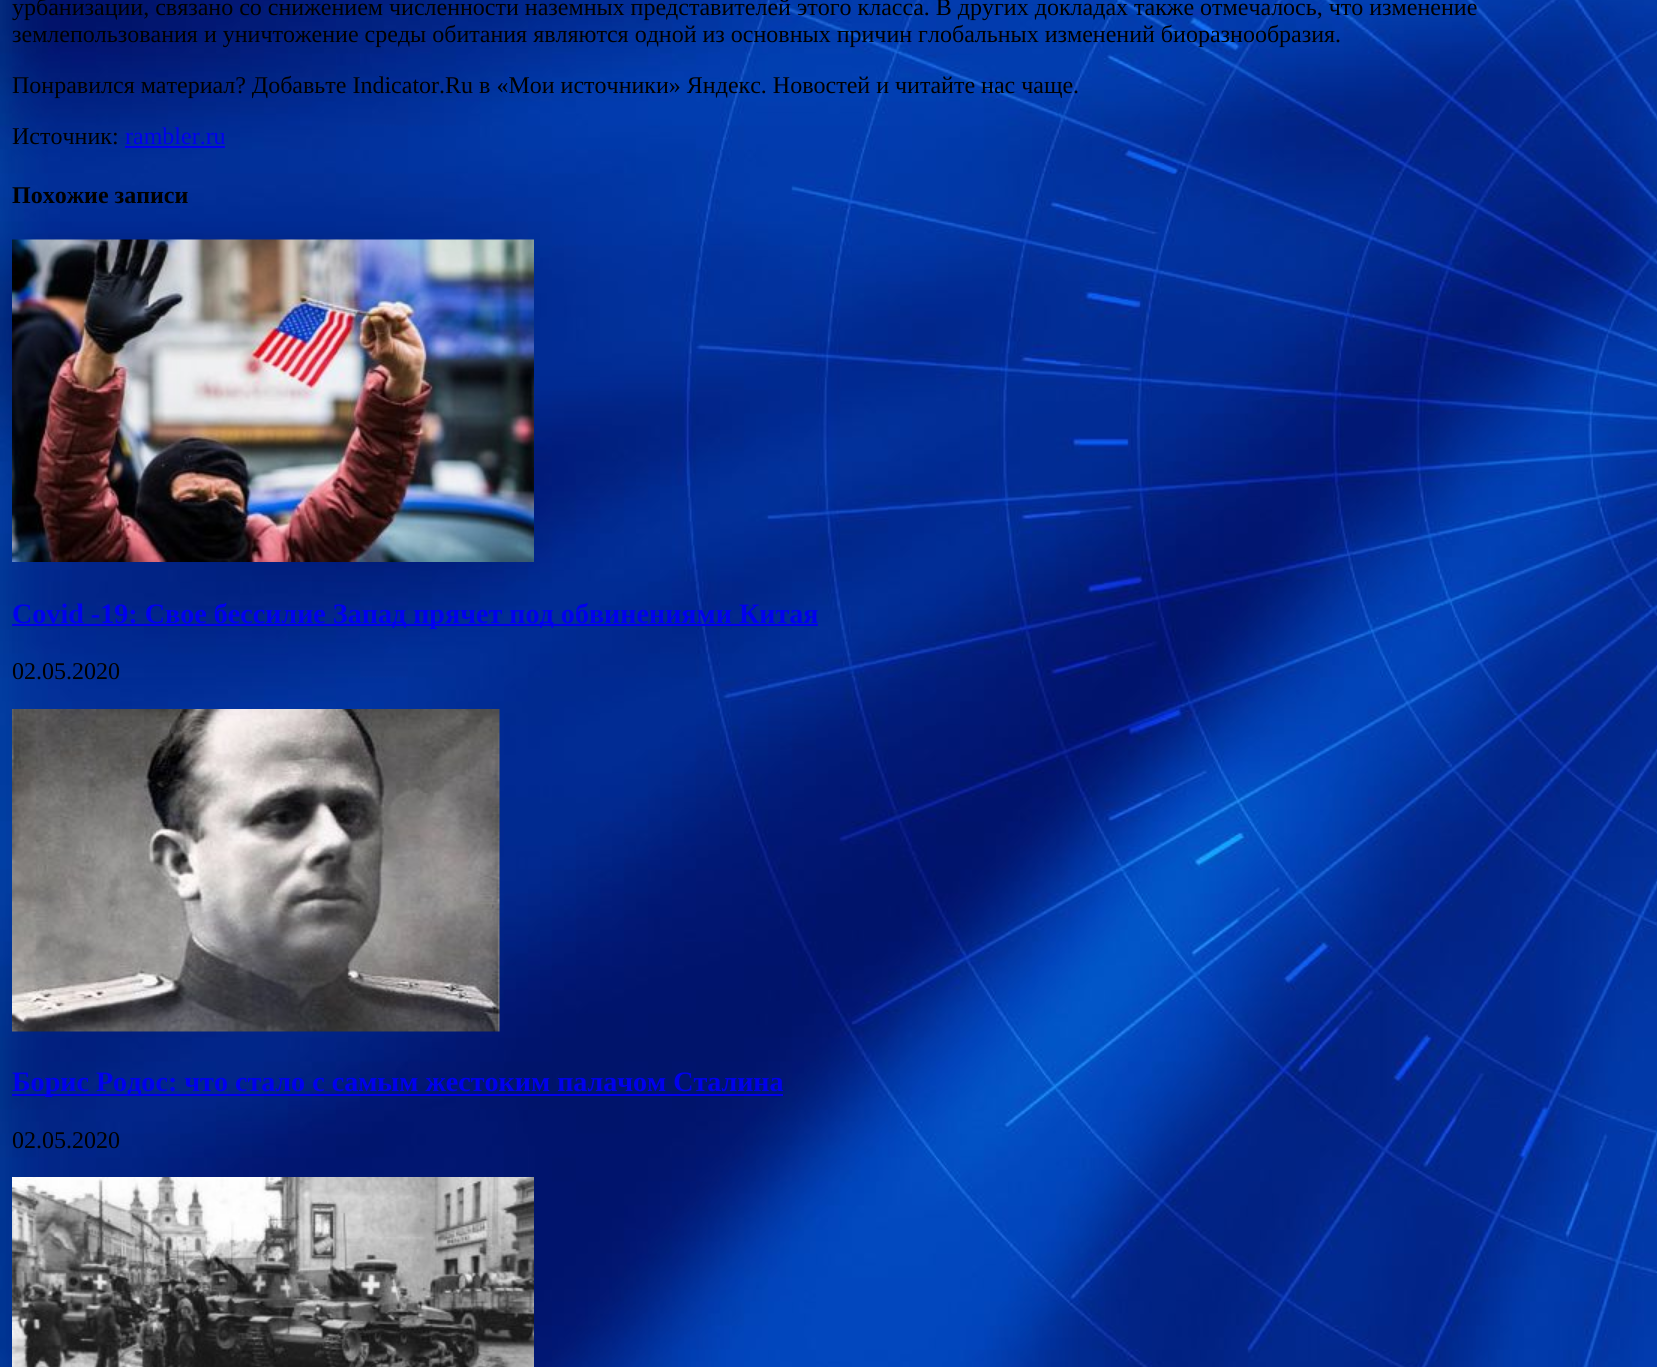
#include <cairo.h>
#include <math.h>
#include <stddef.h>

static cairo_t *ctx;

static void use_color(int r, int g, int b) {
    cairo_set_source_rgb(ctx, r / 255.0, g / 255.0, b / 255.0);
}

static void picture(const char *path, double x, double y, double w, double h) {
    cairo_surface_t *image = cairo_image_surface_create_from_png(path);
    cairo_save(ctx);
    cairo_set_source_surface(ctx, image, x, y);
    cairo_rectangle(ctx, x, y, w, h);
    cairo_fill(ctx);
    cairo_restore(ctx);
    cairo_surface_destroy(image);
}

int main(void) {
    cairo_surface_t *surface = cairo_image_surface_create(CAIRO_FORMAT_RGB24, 1657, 1367);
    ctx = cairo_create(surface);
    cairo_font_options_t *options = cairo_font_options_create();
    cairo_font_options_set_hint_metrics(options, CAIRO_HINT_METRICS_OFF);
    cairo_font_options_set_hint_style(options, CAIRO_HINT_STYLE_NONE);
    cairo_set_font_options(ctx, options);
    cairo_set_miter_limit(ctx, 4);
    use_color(255, 255, 255);
    cairo_paint(ctx);
    picture("img1.png", 0, 0, 1657, 1367);
    cairo_select_font_face(ctx, "Liberation Serif", CAIRO_FONT_SLANT_NORMAL, CAIRO_FONT_WEIGHT_NORMAL);
    cairo_set_font_size(ctx, 24);
    use_color(0, 0, 0);
    cairo_move_to(ctx, 12, 15);
    cairo_show_text(ctx, "урбанизации, связано со снижением численности наземных представителей этого класса. В других докладах также отмечалось, что изменение");
    cairo_move_to(ctx, 12, 42);
    cairo_show_text(ctx, "землепользования и уничтожение среды обитания являются одной из основных причин глобальных изменений биоразнообразия.");
    cairo_move_to(ctx, 12, 93);
    cairo_show_text(ctx, "Понравился материал? Добавьте Indicator.Ru в «Мои источники» Яндекс. Новостей и читайте нас чаще.");
    cairo_move_to(ctx, 12, 144);
    cairo_show_text(ctx, "Источник:");
    use_color(0, 0, 238);
    cairo_move_to(ctx, 125, 144);
    cairo_show_text(ctx, "rambler.ru");
    cairo_rectangle(ctx, 125, 146, 100, 2);
    cairo_fill(ctx);
    cairo_select_font_face(ctx, "Liberation Serif", CAIRO_FONT_SLANT_NORMAL, CAIRO_FONT_WEIGHT_BOLD);
    use_color(0, 0, 0);
    cairo_move_to(ctx, 12, 203);
    cairo_show_text(ctx, "Похожие записи");
    picture("img2.png", 12, 239, 522, 323);
    use_color(0, 0, 238);
    cairo_rectangle(ctx, 12, 624, 806, 2);
    cairo_fill(ctx);
    cairo_set_font_size(ctx, 28.1);
    cairo_move_to(ctx, 12, 623);
    cairo_show_text(ctx, "Covid -19: Свое бессилие Запад прячет под обвинениями Китая");
    cairo_select_font_face(ctx, "Liberation Serif", CAIRO_FONT_SLANT_NORMAL, CAIRO_FONT_WEIGHT_NORMAL);
    cairo_set_font_size(ctx, 24);
    use_color(0, 0, 0);
    cairo_move_to(ctx, 12, 679);
    cairo_show_text(ctx, "02.05.2020");
    picture("img3.png", 12, 709, 488, 323);
    use_color(0, 0, 238);
    cairo_rectangle(ctx, 12, 1094, 771, 2);
    cairo_fill(ctx);
    cairo_select_font_face(ctx, "Liberation Serif", CAIRO_FONT_SLANT_NORMAL, CAIRO_FONT_WEIGHT_BOLD);
    cairo_set_font_size(ctx, 28.1);
    cairo_move_to(ctx, 12, 1091);
    cairo_show_text(ctx, "Борис Родос: что стало с самым жестоким палачом Сталина");
    cairo_select_font_face(ctx, "Liberation Serif", CAIRO_FONT_SLANT_NORMAL, CAIRO_FONT_WEIGHT_NORMAL);
    cairo_set_font_size(ctx, 24);
    use_color(0, 0, 0);
    cairo_move_to(ctx, 12, 1148);
    cairo_show_text(ctx, "02.05.2020");
    picture("img4.png", 12, 1177, 522, 190);
    cairo_surface_write_to_png(surface, "result.png");
    cairo_font_options_destroy(options);
    cairo_destroy(ctx);
    cairo_surface_destroy(surface);
    return 0;
}
